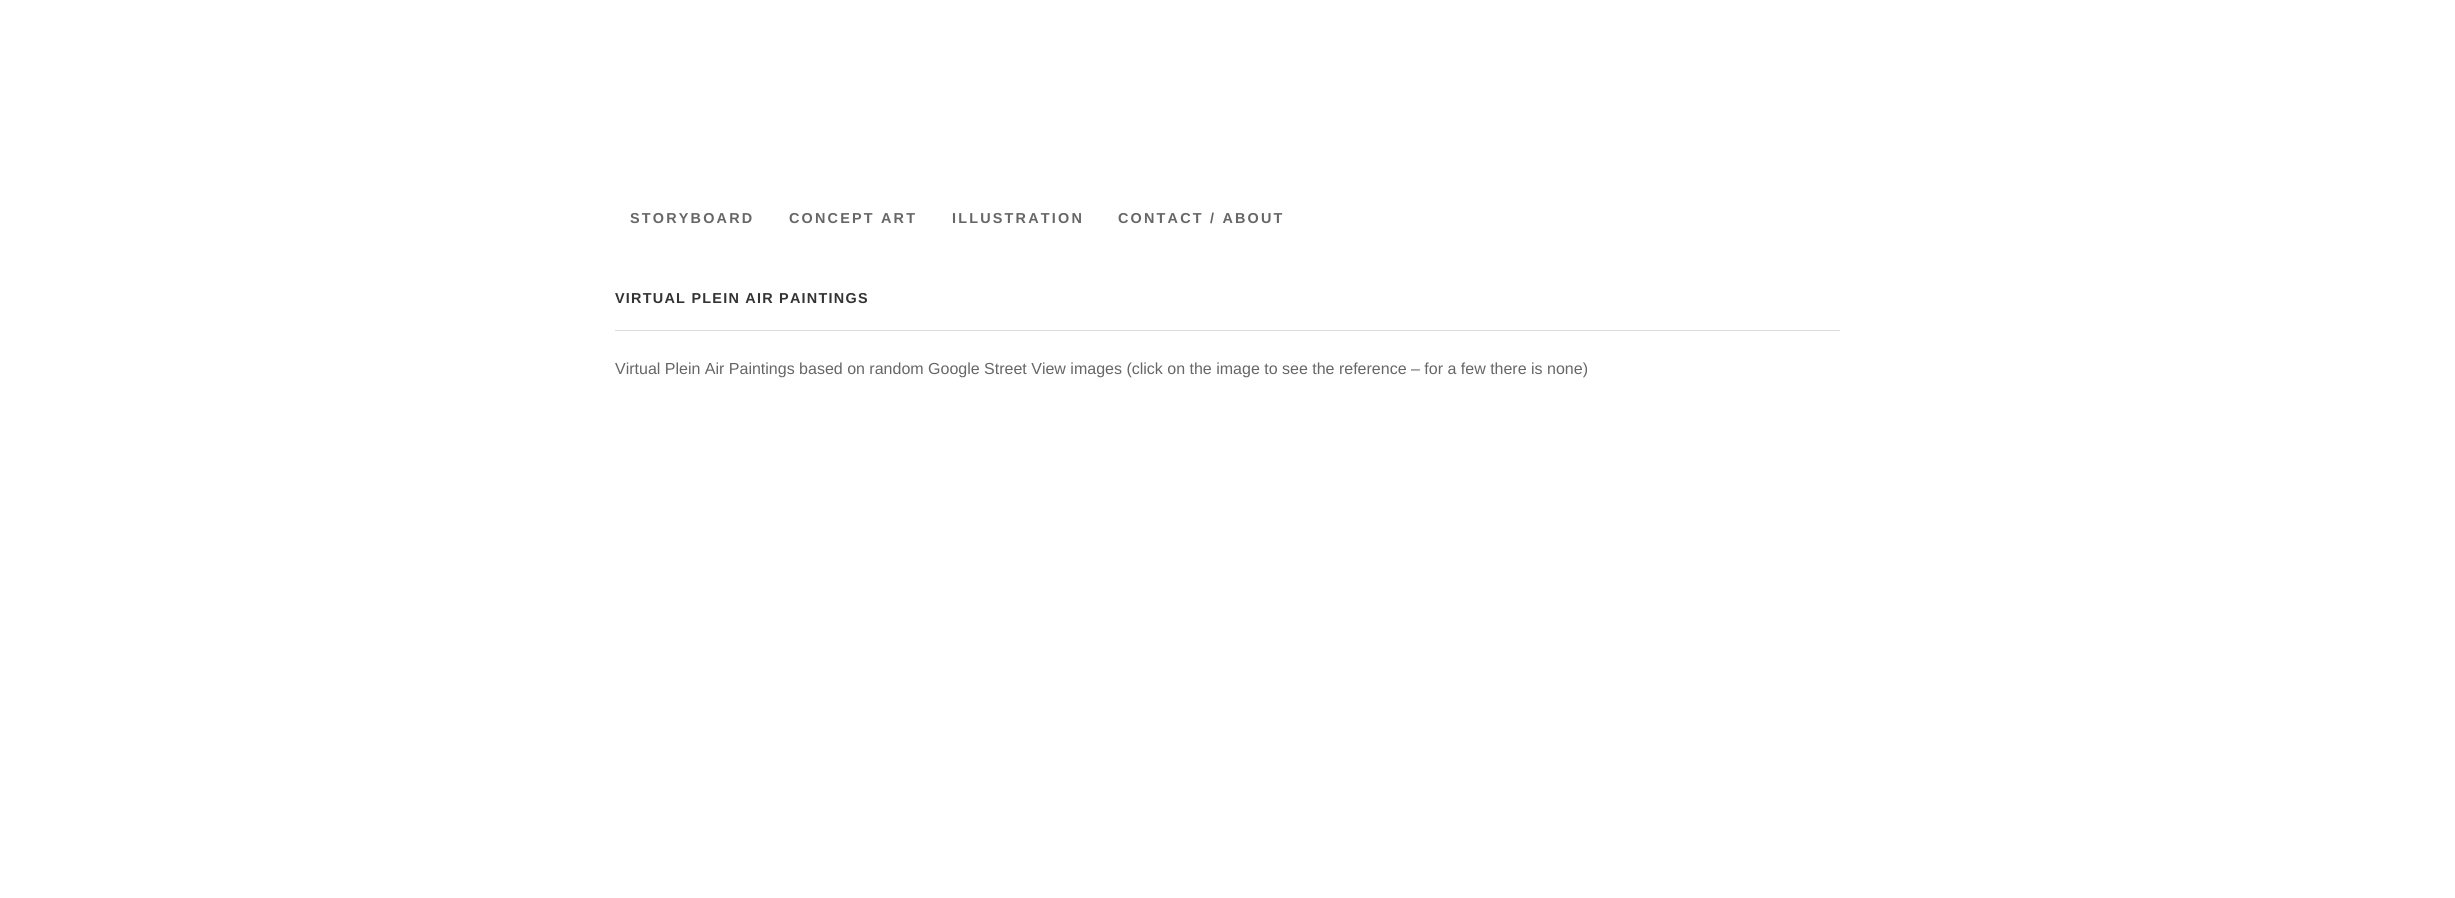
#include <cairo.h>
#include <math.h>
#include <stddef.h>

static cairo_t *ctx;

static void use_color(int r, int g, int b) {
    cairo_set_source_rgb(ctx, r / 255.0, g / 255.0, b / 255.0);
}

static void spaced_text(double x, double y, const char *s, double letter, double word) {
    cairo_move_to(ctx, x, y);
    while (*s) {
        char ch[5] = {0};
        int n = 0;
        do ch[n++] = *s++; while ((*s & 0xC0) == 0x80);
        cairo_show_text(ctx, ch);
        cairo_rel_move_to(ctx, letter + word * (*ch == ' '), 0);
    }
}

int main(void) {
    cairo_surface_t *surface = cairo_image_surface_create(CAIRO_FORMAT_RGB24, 2455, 898);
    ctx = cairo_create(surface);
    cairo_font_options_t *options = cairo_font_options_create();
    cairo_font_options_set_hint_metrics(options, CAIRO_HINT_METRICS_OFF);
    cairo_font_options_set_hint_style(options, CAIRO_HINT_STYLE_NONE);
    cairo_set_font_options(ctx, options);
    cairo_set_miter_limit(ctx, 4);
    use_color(255, 255, 255);
    cairo_paint(ctx);
    cairo_select_font_face(ctx, "Liberation Sans", CAIRO_FONT_SLANT_NORMAL, CAIRO_FONT_WEIGHT_BOLD);
    cairo_set_font_size(ctx, 14.4);
    use_color(102, 102, 102);
    spaced_text(630, 223, "STORYBOARD", 2.2, 0);
    spaced_text(789, 223, "CONCEPT ART", 2.2, 0);
    spaced_text(952, 223, "ILLUSTRATION", 2.2, 0);
    spaced_text(1118, 223, "CONTACT / ABOUT", 2.2, 0);
    use_color(221, 221, 221);
    cairo_rectangle(ctx, 615, 330, 1225, 1);
    cairo_fill(ctx);
    use_color(51, 51, 51);
    spaced_text(615, 303, "VIRTUAL PLEIN AIR PAINTINGS", 1.25, 0);
    cairo_select_font_face(ctx, "Liberation Sans", CAIRO_FONT_SLANT_NORMAL, CAIRO_FONT_WEIGHT_NORMAL);
    cairo_set_font_size(ctx, 16);
    use_color(102, 102, 102);
    cairo_move_to(ctx, 615, 374);
    cairo_show_text(ctx, "Virtual Plein Air Paintings based on random Google Street View images (click on the image to see the reference – for a few there is none)");
    cairo_surface_write_to_png(surface, "result.png");
    cairo_font_options_destroy(options);
    cairo_destroy(ctx);
    cairo_surface_destroy(surface);
    return 0;
}
